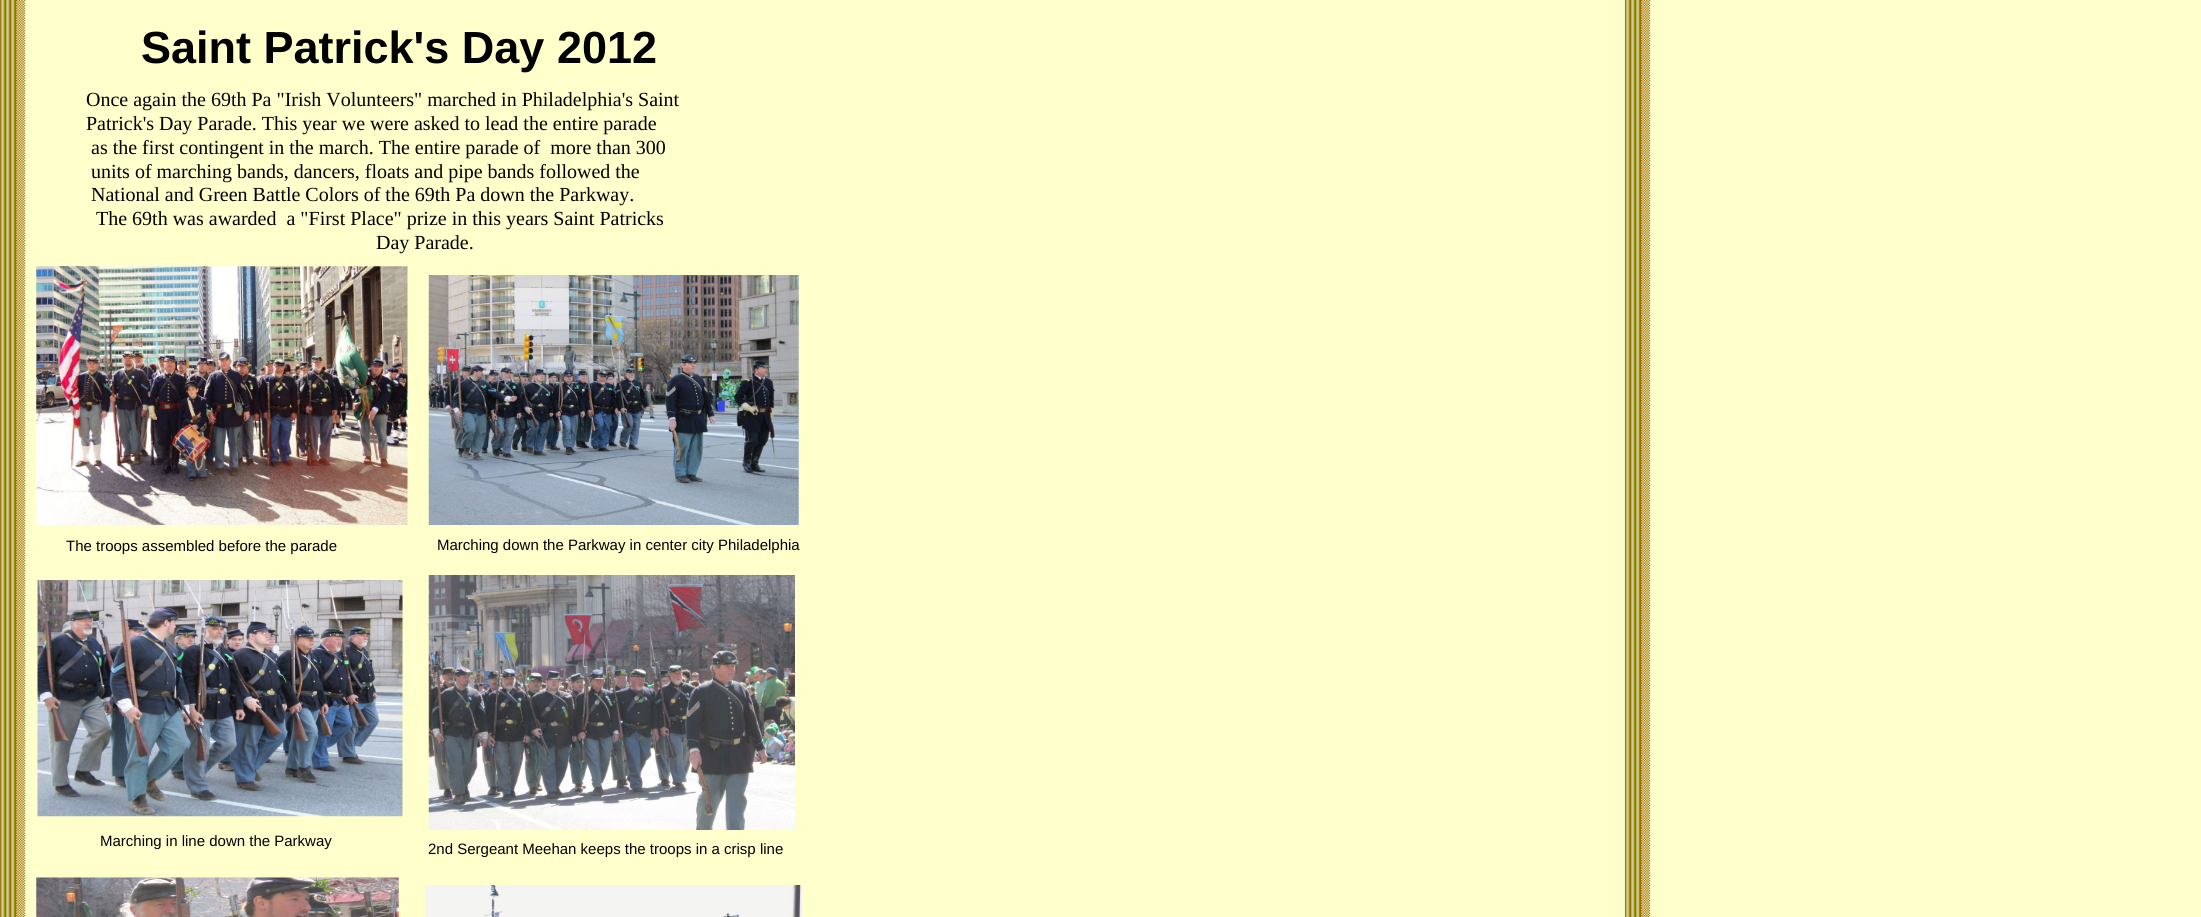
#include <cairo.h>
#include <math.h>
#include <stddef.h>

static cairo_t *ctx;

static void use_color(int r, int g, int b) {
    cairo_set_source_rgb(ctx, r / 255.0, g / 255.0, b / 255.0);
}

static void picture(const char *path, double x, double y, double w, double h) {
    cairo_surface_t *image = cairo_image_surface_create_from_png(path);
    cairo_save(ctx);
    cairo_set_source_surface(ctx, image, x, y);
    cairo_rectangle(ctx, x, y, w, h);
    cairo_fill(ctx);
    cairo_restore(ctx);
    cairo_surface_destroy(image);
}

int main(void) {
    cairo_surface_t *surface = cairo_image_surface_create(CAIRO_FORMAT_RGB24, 2201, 917);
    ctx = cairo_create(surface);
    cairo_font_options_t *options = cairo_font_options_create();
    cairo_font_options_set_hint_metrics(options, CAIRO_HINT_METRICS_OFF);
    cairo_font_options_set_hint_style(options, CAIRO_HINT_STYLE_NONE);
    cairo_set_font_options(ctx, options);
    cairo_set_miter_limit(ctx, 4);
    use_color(255, 255, 255);
    cairo_paint(ctx);
    picture("img1.png", 0, 0, 2201, 917);
    cairo_select_font_face(ctx, "Liberation Sans", CAIRO_FONT_SLANT_NORMAL, CAIRO_FONT_WEIGHT_BOLD);
    cairo_set_font_size(ctx, 45);
    use_color(0, 0, 0);
    cairo_move_to(ctx, 141, 63);
    cairo_show_text(ctx, "Saint Patrick's Day 2012");
    cairo_select_font_face(ctx, "Liberation Serif", CAIRO_FONT_SLANT_NORMAL, CAIRO_FONT_WEIGHT_NORMAL);
    cairo_set_font_size(ctx, 20);
    cairo_move_to(ctx, 86, 106);
    cairo_show_text(ctx, "Once again the 69th Pa \"Irish Volunteers\" marched in Philadelphia's Saint");
    cairo_move_to(ctx, 86, 130);
    cairo_show_text(ctx, "Patrick's Day Parade. This year we were asked to lead the entire parade");
    cairo_move_to(ctx, 91, 154);
    cairo_show_text(ctx, "as the first contingent in the march. The entire parade of  more than 300");
    cairo_move_to(ctx, 91, 178);
    cairo_show_text(ctx, "units of marching bands, dancers, floats and pipe bands followed the");
    cairo_move_to(ctx, 91, 201);
    cairo_show_text(ctx, "National and Green Battle Colors of the 69th Pa down the Parkway.");
    cairo_move_to(ctx, 96, 225);
    cairo_show_text(ctx, "The 69th was awarded  a \"First Place\" prize in this years Saint Patricks");
    cairo_move_to(ctx, 376, 249);
    cairo_show_text(ctx, "Day Parade.");
    picture("img2.png", 36, 266, 372, 259);
    picture("img3.png", 428, 275, 371, 250);
    cairo_select_font_face(ctx, "Liberation Sans", CAIRO_FONT_SLANT_NORMAL, CAIRO_FONT_WEIGHT_NORMAL);
    cairo_set_font_size(ctx, 15);
    cairo_move_to(ctx, 66, 551);
    cairo_show_text(ctx, "The troops assembled before the parade");
    cairo_move_to(ctx, 437, 550);
    cairo_show_text(ctx, "Marching down the Parkway in center city Philadelphia");
    picture("img4.png", 37, 580, 366, 237);
    picture("img5.png", 428, 575, 367, 255);
    cairo_move_to(ctx, 100, 846);
    cairo_show_text(ctx, "Marching in line down the Parkway");
    cairo_move_to(ctx, 428, 854);
    cairo_show_text(ctx, "2nd Sergeant Meehan keeps the troops in a crisp line");
    picture("img6.png", 36, 877, 363, 40);
    picture("img7.png", 425, 885, 378, 32);
    cairo_surface_write_to_png(surface, "result.png");
    cairo_font_options_destroy(options);
    cairo_destroy(ctx);
    cairo_surface_destroy(surface);
    return 0;
}
